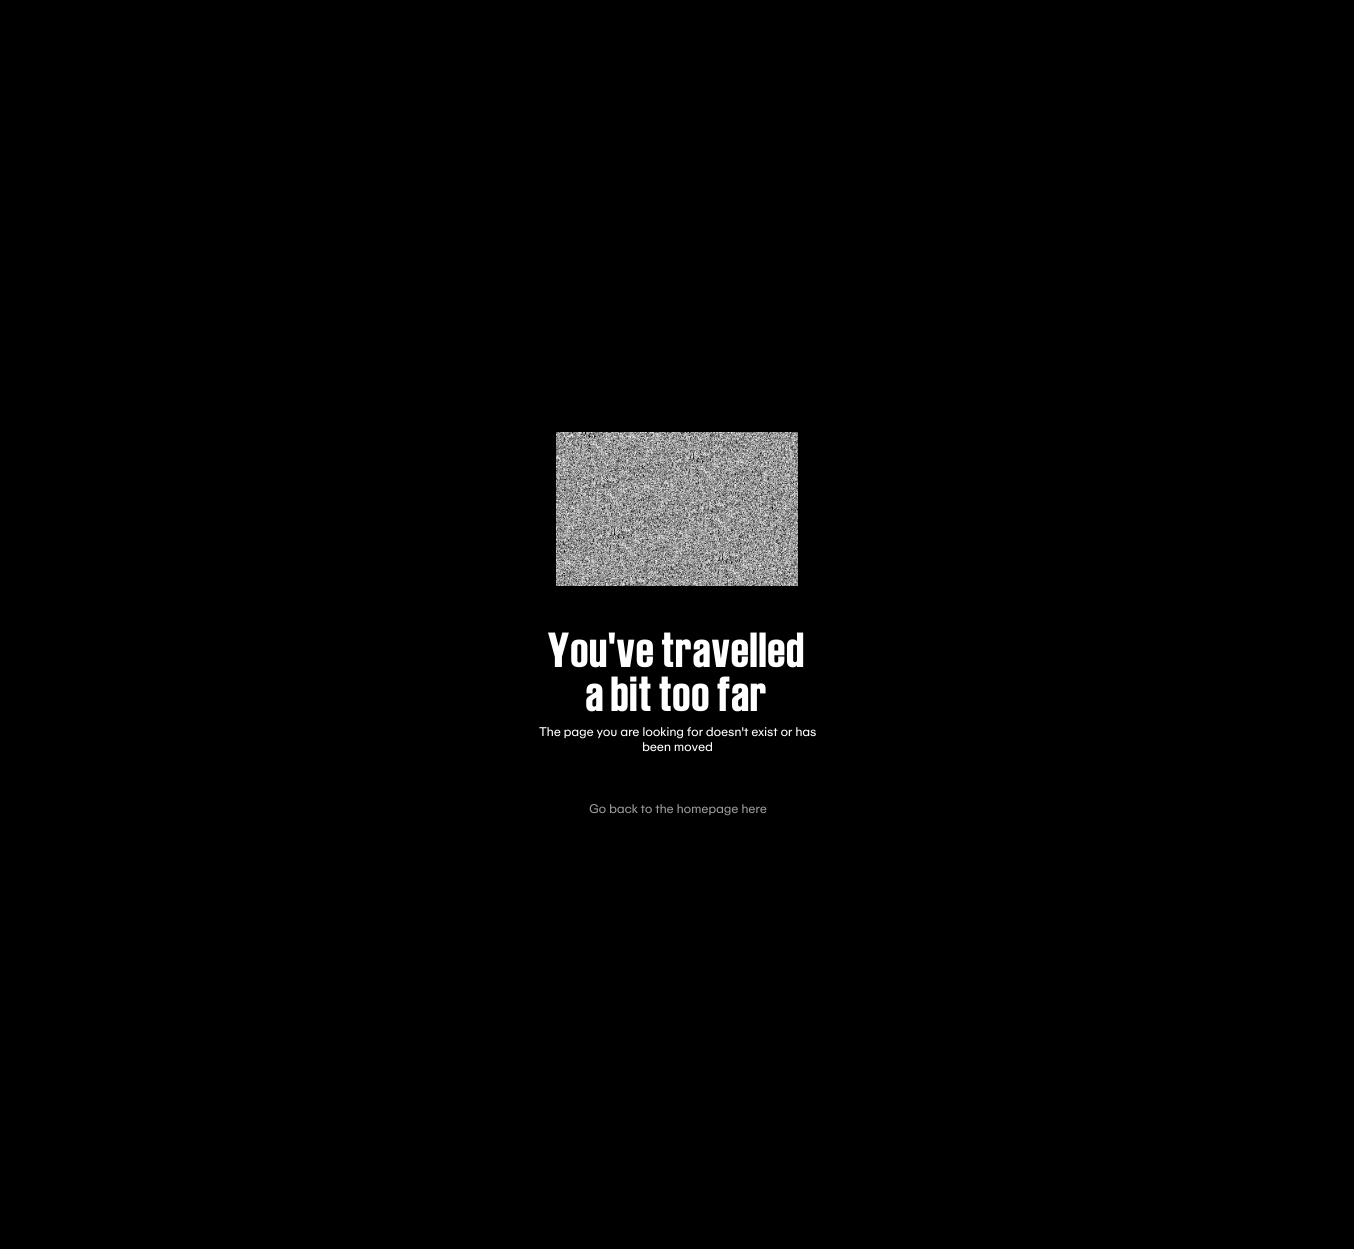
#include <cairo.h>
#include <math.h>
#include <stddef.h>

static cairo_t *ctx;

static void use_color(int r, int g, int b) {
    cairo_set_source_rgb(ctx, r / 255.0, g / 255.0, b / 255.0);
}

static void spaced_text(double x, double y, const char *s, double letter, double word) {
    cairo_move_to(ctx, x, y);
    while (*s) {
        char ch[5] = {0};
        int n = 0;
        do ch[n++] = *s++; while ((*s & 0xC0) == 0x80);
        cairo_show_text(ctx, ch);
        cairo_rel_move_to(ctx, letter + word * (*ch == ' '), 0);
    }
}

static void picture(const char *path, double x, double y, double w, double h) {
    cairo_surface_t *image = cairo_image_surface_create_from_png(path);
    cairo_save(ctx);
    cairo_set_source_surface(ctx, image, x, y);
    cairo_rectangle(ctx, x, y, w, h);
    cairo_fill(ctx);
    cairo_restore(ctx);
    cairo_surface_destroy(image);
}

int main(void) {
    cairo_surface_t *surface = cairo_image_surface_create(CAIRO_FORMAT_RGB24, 1354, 1249);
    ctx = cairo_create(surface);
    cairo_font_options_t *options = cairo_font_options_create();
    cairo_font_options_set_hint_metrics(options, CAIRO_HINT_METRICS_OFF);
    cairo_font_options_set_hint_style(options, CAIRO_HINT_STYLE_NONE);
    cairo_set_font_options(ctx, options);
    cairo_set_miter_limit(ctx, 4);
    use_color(0, 0, 0);
    cairo_paint(ctx);
    picture("img1.png", 556, 432, 242, 154);
    cairo_select_font_face(ctx, "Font", CAIRO_FONT_SLANT_NORMAL, CAIRO_FONT_WEIGHT_NORMAL);
    cairo_set_font_size(ctx, 43.5);
    use_color(255, 255, 255);
    spaced_text(548, 667, "You've travelled", 2.2, 0);
    spaced_text(586, 711, "a bit too far", 2.2, 0);
    cairo_select_font_face(ctx, "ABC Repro", CAIRO_FONT_SLANT_NORMAL, CAIRO_FONT_WEIGHT_NORMAL);
    cairo_set_font_size(ctx, 12.5);
    spaced_text(539, 736, "The page you are looking for doesn't exist or has", -0.25, 0);
    spaced_text(642, 751, "been moved", -0.25, 0);
    use_color(153, 153, 153);
    spaced_text(589, 813, "Go back to the homepage here", -0.25, 0);
    cairo_surface_write_to_png(surface, "result.png");
    cairo_font_options_destroy(options);
    cairo_destroy(ctx);
    cairo_surface_destroy(surface);
    return 0;
}
